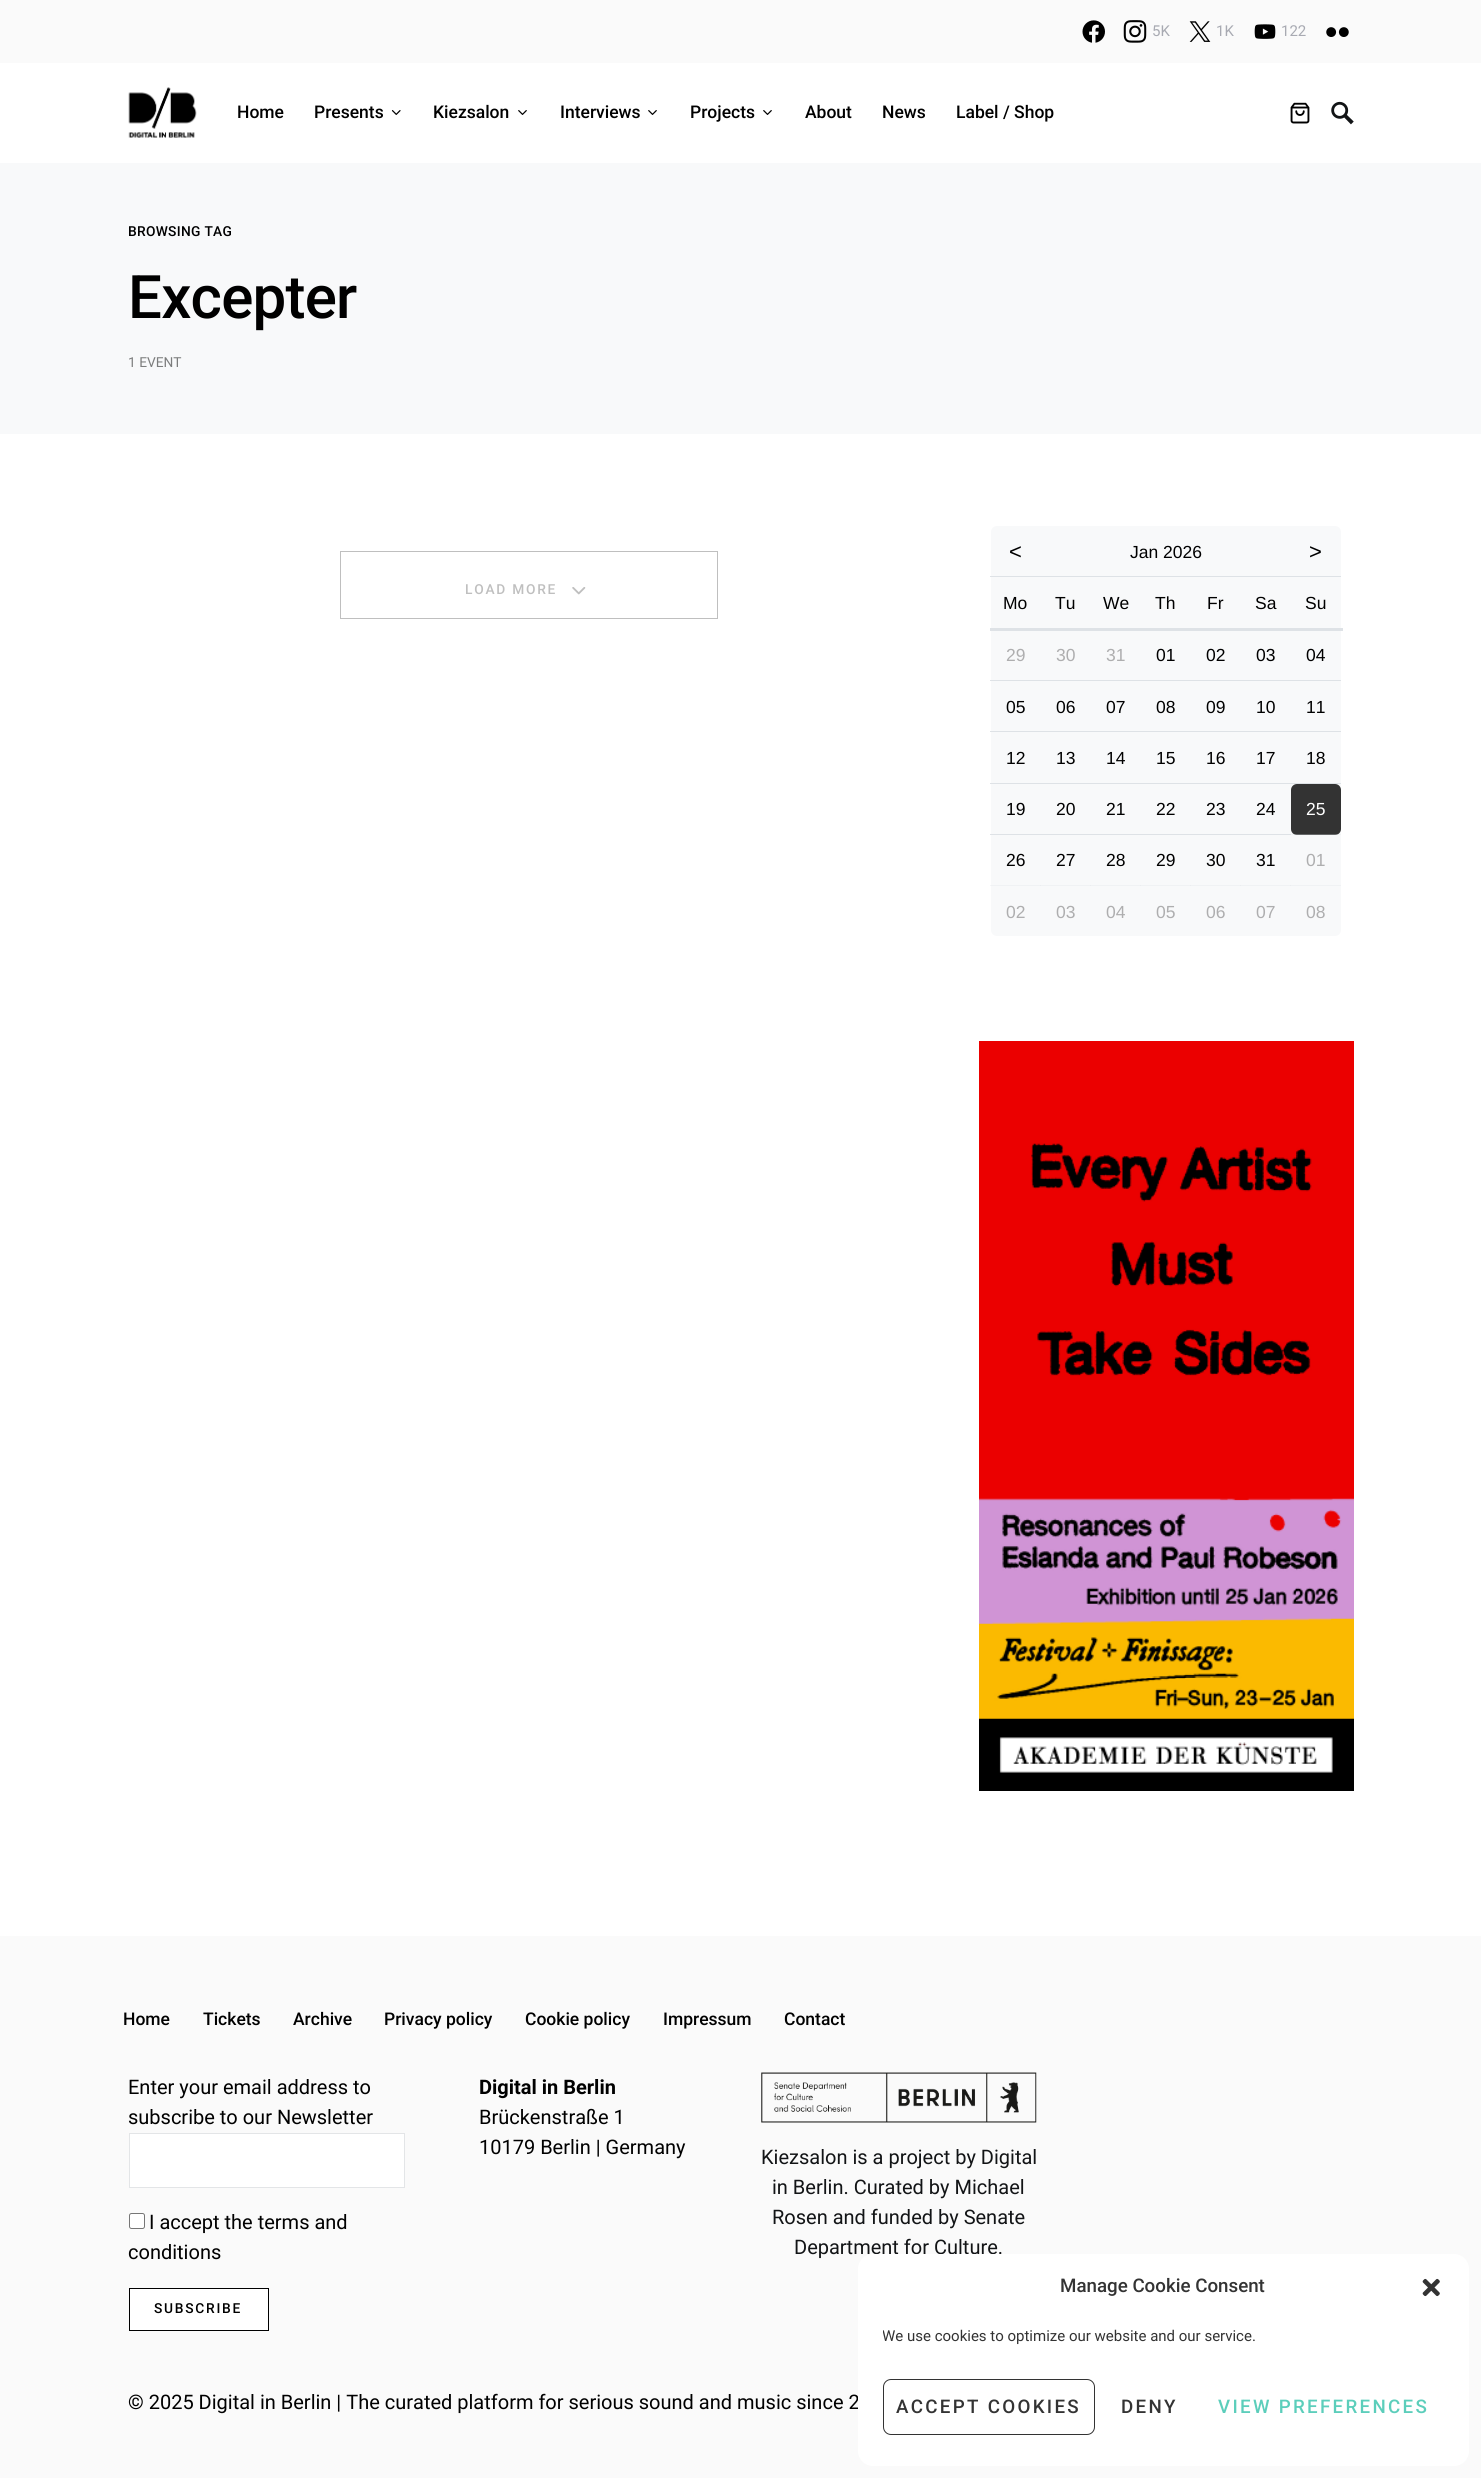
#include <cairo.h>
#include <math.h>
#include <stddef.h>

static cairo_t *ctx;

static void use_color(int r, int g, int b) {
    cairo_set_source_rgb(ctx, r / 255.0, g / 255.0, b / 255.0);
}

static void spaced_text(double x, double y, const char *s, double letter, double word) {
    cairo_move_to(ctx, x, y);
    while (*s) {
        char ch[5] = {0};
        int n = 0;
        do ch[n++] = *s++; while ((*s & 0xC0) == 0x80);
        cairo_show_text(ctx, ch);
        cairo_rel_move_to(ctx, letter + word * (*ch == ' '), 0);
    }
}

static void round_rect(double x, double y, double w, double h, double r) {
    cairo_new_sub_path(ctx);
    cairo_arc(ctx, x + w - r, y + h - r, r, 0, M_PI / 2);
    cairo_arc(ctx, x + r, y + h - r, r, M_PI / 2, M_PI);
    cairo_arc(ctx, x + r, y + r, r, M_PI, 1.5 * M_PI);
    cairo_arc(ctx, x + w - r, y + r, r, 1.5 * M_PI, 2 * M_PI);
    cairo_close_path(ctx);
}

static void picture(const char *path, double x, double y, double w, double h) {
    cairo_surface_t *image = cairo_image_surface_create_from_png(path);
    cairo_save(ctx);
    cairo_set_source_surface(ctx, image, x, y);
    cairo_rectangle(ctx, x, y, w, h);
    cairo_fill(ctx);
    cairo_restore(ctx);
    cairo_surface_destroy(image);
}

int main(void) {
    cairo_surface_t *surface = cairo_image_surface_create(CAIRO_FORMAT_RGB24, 1481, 2478);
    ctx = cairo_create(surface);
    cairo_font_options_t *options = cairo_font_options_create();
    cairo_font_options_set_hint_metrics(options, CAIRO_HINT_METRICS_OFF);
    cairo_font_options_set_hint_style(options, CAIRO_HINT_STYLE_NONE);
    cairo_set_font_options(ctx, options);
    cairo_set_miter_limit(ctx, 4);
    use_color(255, 255, 255);
    cairo_paint(ctx);
    use_color(245, 246, 248);
    cairo_rectangle(ctx, 990, 885, 1, 1);
    cairo_fill(ctx);
    use_color(250, 250, 250);
    cairo_rectangle(ctx, 0, 0, 1481, 63);
    cairo_fill(ctx);
    picture("img1.png", 1082, 20, 23, 23);
    picture("img2.png", 1123, 20, 24, 23);
    cairo_select_font_face(ctx, "Roboto", CAIRO_FONT_SLANT_NORMAL, CAIRO_FONT_WEIGHT_NORMAL);
    cairo_set_font_size(ctx, 15);
    use_color(168, 170, 178);
    cairo_move_to(ctx, 1152, 36);
    cairo_show_text(ctx, "5K");
    picture("img3.png", 1189, 21, 22, 21);
    cairo_move_to(ctx, 1216, 36);
    cairo_show_text(ctx, "1K");
    picture("img4.png", 1254, 24, 22, 15);
    cairo_move_to(ctx, 1281, 36);
    cairo_show_text(ctx, "122");
    picture("img5.png", 1326, 27, 23, 10);
    picture("img6.png", 128, 87, 69, 51);
    cairo_select_font_face(ctx, "Roboto Medium", CAIRO_FONT_SLANT_NORMAL, CAIRO_FONT_WEIGHT_NORMAL);
    cairo_set_font_size(ctx, 17.5);
    use_color(0, 0, 0);
    cairo_move_to(ctx, 237, 118);
    cairo_show_text(ctx, "Home");
    cairo_move_to(ctx, 314, 118);
    cairo_show_text(ctx, "Presents");
    picture("img7.png", 391, 110, 10, 5);
    cairo_move_to(ctx, 433, 118);
    cairo_show_text(ctx, "Kiezsalon");
    picture("img8.png", 518, 110, 9, 5);
    cairo_move_to(ctx, 560, 118);
    cairo_show_text(ctx, "Interviews");
    picture("img8.png", 648, 110, 9, 5);
    cairo_move_to(ctx, 690, 118);
    cairo_show_text(ctx, "Projects");
    picture("img8.png", 763, 110, 9, 5);
    cairo_move_to(ctx, 805, 118);
    cairo_show_text(ctx, "About");
    cairo_move_to(ctx, 882, 118);
    cairo_show_text(ctx, "News");
    cairo_move_to(ctx, 956, 118);
    cairo_show_text(ctx, "Label / Shop");
    picture("img9.png", 1290, 102, 20, 22);
    picture("img10.png", 1331, 101, 23, 24);
    use_color(248, 249, 250);
    cairo_rectangle(ctx, 0, 163, 1481, 271);
    cairo_fill(ctx);
    cairo_set_font_size(ctx, 13.75);
    use_color(0, 0, 0);
    spaced_text(128, 236, "BROWSING TAG", 0.3, 0);
    cairo_set_font_size(ctx, 60);
    spaced_text(128, 318, "Excepter", -0.75, 0);
    cairo_select_font_face(ctx, "Roboto", CAIRO_FONT_SLANT_NORMAL, CAIRO_FONT_WEIGHT_NORMAL);
    cairo_set_font_size(ctx, 13.75);
    use_color(124, 125, 125);
    cairo_move_to(ctx, 128, 367);
    cairo_show_text(ctx, "1 EVENT");
    cairo_rectangle(ctx, 340.5, 551.5, 377, 67);
    use_color(191, 191, 191);
    cairo_set_line_width(ctx, 1);
    cairo_stroke(ctx);
    cairo_select_font_face(ctx, "Roboto Medium", CAIRO_FONT_SLANT_NORMAL, CAIRO_FONT_WEIGHT_NORMAL);
    spaced_text(465, 594, "LOAD MORE", 1.75, 0);
    picture("img11.png", 572, 587, 14, 8);
    use_color(248, 249, 250);
    round_rect(991, 526, 350, 410, 6);
    cairo_fill(ctx);
    use_color(240, 242, 244);
    cairo_rectangle(ctx, 991, 885, 350, 1);
    cairo_fill(ctx);
    use_color(235, 237, 240);
    cairo_rectangle(ctx, 1040, 885, 1, 1);
    cairo_fill(ctx);
    cairo_rectangle(ctx, 1090, 885, 1, 1);
    cairo_fill(ctx);
    cairo_rectangle(ctx, 1140, 885, 1, 1);
    cairo_fill(ctx);
    cairo_rectangle(ctx, 1190, 885, 1, 1);
    cairo_fill(ctx);
    cairo_rectangle(ctx, 1240, 885, 1, 1);
    cairo_fill(ctx);
    cairo_select_font_face(ctx, "Liberation Sans", CAIRO_FONT_SLANT_NORMAL, CAIRO_FONT_WEIGHT_NORMAL);
    cairo_set_font_size(ctx, 22);
    use_color(0, 0, 0);
    cairo_move_to(ctx, 1009, 559);
    cairo_show_text(ctx, "<");
    cairo_set_font_size(ctx, 17.5);
    cairo_move_to(ctx, 1130, 558);
    cairo_show_text(ctx, "Jan 2026");
    cairo_set_font_size(ctx, 22);
    cairo_move_to(ctx, 1309, 559);
    cairo_show_text(ctx, ">");
    cairo_set_font_size(ctx, 17.5);
    cairo_move_to(ctx, 1003, 609);
    cairo_show_text(ctx, "Mo");
    cairo_move_to(ctx, 1055, 609);
    cairo_show_text(ctx, "Tu");
    cairo_move_to(ctx, 1103, 609);
    cairo_show_text(ctx, "We");
    cairo_move_to(ctx, 1155, 609);
    cairo_show_text(ctx, "Th");
    cairo_move_to(ctx, 1207, 609);
    cairo_show_text(ctx, "Fr");
    cairo_move_to(ctx, 1255, 609);
    cairo_show_text(ctx, "Sa");
    use_color(222, 226, 230);
    cairo_rectangle(ctx, 990, 576, 351, 1);
    cairo_fill(ctx);
    cairo_rectangle(ctx, 990, 628, 353, 3);
    cairo_fill(ctx);
    use_color(0, 0, 0);
    cairo_move_to(ctx, 1305, 609);
    cairo_show_text(ctx, "Su");
    use_color(174, 174, 175);
    cairo_move_to(ctx, 1006, 661);
    cairo_show_text(ctx, "29");
    cairo_move_to(ctx, 1056, 661);
    cairo_show_text(ctx, "30");
    cairo_move_to(ctx, 1106, 661);
    cairo_show_text(ctx, "31");
    use_color(0, 0, 0);
    cairo_move_to(ctx, 1156, 661);
    cairo_show_text(ctx, "01");
    cairo_move_to(ctx, 1206, 661);
    cairo_show_text(ctx, "02");
    cairo_move_to(ctx, 1256, 661);
    cairo_show_text(ctx, "03");
    cairo_move_to(ctx, 1306, 661);
    cairo_show_text(ctx, "04");
    cairo_move_to(ctx, 1006, 713);
    cairo_show_text(ctx, "05");
    cairo_move_to(ctx, 1056, 713);
    cairo_show_text(ctx, "06");
    cairo_move_to(ctx, 1106, 713);
    cairo_show_text(ctx, "07");
    cairo_move_to(ctx, 1156, 713);
    cairo_show_text(ctx, "08");
    cairo_move_to(ctx, 1206, 713);
    cairo_show_text(ctx, "09");
    cairo_move_to(ctx, 1256, 713);
    cairo_show_text(ctx, "10");
    use_color(222, 226, 230);
    cairo_rectangle(ctx, 990, 680, 351, 1);
    cairo_fill(ctx);
    use_color(0, 0, 0);
    cairo_move_to(ctx, 1306, 713);
    cairo_show_text(ctx, "11");
    cairo_move_to(ctx, 1006, 764);
    cairo_show_text(ctx, "12");
    cairo_move_to(ctx, 1056, 764);
    cairo_show_text(ctx, "13");
    cairo_move_to(ctx, 1106, 764);
    cairo_show_text(ctx, "14");
    cairo_move_to(ctx, 1156, 764);
    cairo_show_text(ctx, "15");
    cairo_move_to(ctx, 1206, 764);
    cairo_show_text(ctx, "16");
    cairo_move_to(ctx, 1256, 764);
    cairo_show_text(ctx, "17");
    use_color(222, 226, 230);
    cairo_rectangle(ctx, 990, 731, 351, 1);
    cairo_fill(ctx);
    use_color(0, 0, 0);
    cairo_move_to(ctx, 1306, 764);
    cairo_show_text(ctx, "18");
    cairo_move_to(ctx, 1006, 815);
    cairo_show_text(ctx, "19");
    cairo_move_to(ctx, 1056, 815);
    cairo_show_text(ctx, "20");
    cairo_move_to(ctx, 1106, 815);
    cairo_show_text(ctx, "21");
    cairo_move_to(ctx, 1156, 815);
    cairo_show_text(ctx, "22");
    cairo_move_to(ctx, 1206, 815);
    cairo_show_text(ctx, "23");
    cairo_move_to(ctx, 1256, 815);
    cairo_show_text(ctx, "24");
    use_color(51, 51, 51);
    round_rect(1291, 784, 50, 51, 6);
    cairo_fill(ctx);
    use_color(222, 226, 230);
    cairo_rectangle(ctx, 990, 783, 351, 1);
    cairo_fill(ctx);
    use_color(255, 255, 255);
    cairo_move_to(ctx, 1306, 815);
    cairo_show_text(ctx, "25");
    use_color(0, 0, 0);
    cairo_move_to(ctx, 1006, 866);
    cairo_show_text(ctx, "26");
    cairo_move_to(ctx, 1056, 866);
    cairo_show_text(ctx, "27");
    cairo_move_to(ctx, 1106, 866);
    cairo_show_text(ctx, "28");
    cairo_move_to(ctx, 1156, 866);
    cairo_show_text(ctx, "29");
    cairo_move_to(ctx, 1206, 866);
    cairo_show_text(ctx, "30");
    cairo_set_source_rgba(ctx, 0.871, 0.886, 0.902, 0.3);
    cairo_rectangle(ctx, 1290, 834, 51, 1);
    cairo_fill(ctx);
    use_color(222, 226, 230);
    cairo_rectangle(ctx, 990, 834, 301, 1);
    cairo_fill(ctx);
    use_color(0, 0, 0);
    cairo_move_to(ctx, 1256, 866);
    cairo_show_text(ctx, "31");
    use_color(174, 174, 175);
    cairo_move_to(ctx, 1306, 866);
    cairo_show_text(ctx, "01");
    cairo_move_to(ctx, 1006, 918);
    cairo_show_text(ctx, "02");
    cairo_move_to(ctx, 1056, 918);
    cairo_show_text(ctx, "03");
    cairo_move_to(ctx, 1106, 918);
    cairo_show_text(ctx, "04");
    cairo_move_to(ctx, 1156, 918);
    cairo_show_text(ctx, "05");
    cairo_move_to(ctx, 1206, 918);
    cairo_show_text(ctx, "06");
    cairo_move_to(ctx, 1256, 918);
    cairo_show_text(ctx, "07");
    use_color(235, 237, 240);
    cairo_rectangle(ctx, 1290, 885, 1, 1);
    cairo_fill(ctx);
    use_color(174, 174, 175);
    cairo_move_to(ctx, 1306, 918);
    cairo_show_text(ctx, "08");
    picture("img12.png", 979, 1041, 375, 750);
    use_color(250, 250, 250);
    cairo_rectangle(ctx, 0, 1936, 1481, 542);
    cairo_fill(ctx);
    cairo_select_font_face(ctx, "Roboto Medium", CAIRO_FONT_SLANT_NORMAL, CAIRO_FONT_WEIGHT_NORMAL);
    use_color(0, 0, 0);
    cairo_move_to(ctx, 123, 2025);
    cairo_show_text(ctx, "Home");
    cairo_move_to(ctx, 203, 2025);
    cairo_show_text(ctx, "Tickets");
    cairo_move_to(ctx, 293, 2025);
    cairo_show_text(ctx, "Archive");
    cairo_move_to(ctx, 384, 2025);
    cairo_show_text(ctx, "Privacy policy");
    cairo_move_to(ctx, 525, 2025);
    cairo_show_text(ctx, "Cookie policy");
    cairo_move_to(ctx, 663, 2025);
    cairo_show_text(ctx, "Impressum");
    cairo_move_to(ctx, 784, 2025);
    cairo_show_text(ctx, "Contact");
    cairo_select_font_face(ctx, "Roboto", CAIRO_FONT_SLANT_NORMAL, CAIRO_FONT_WEIGHT_NORMAL);
    cairo_set_font_size(ctx, 20);
    cairo_move_to(ctx, 128, 2094);
    cairo_show_text(ctx, "Enter your email address to");
    cairo_move_to(ctx, 128, 2124);
    cairo_show_text(ctx, "subscribe to our Newsletter");
    use_color(255, 255, 255);
    cairo_rectangle(ctx, 129.5, 2133.5, 275, 54);
    cairo_fill_preserve(ctx);
    use_color(227, 229, 231);
    cairo_stroke(ctx);
    use_color(255, 255, 255);
    round_rect(129.5, 2213.5, 15, 15, 2);
    cairo_fill_preserve(ctx);
    use_color(118, 118, 118);
    cairo_stroke(ctx);
    use_color(0, 0, 0);
    cairo_move_to(ctx, 149, 2229);
    cairo_show_text(ctx, "I accept the terms and");
    cairo_move_to(ctx, 128, 2259);
    cairo_show_text(ctx, "conditions");
    use_color(255, 255, 255);
    cairo_rectangle(ctx, 129.5, 2288.5, 139, 42);
    cairo_fill_preserve(ctx);
    use_color(0, 0, 0);
    cairo_stroke(ctx);
    cairo_select_font_face(ctx, "Roboto Medium", CAIRO_FONT_SLANT_NORMAL, CAIRO_FONT_WEIGHT_NORMAL);
    cairo_set_font_size(ctx, 13.75);
    spaced_text(154, 2313, "SUBSCRIBE", 1.75, 0);
    cairo_select_font_face(ctx, "Roboto", CAIRO_FONT_SLANT_NORMAL, CAIRO_FONT_WEIGHT_BOLD);
    cairo_set_font_size(ctx, 20);
    cairo_move_to(ctx, 479, 2094);
    cairo_show_text(ctx, "Digital in Berlin");
    cairo_select_font_face(ctx, "Roboto", CAIRO_FONT_SLANT_NORMAL, CAIRO_FONT_WEIGHT_NORMAL);
    cairo_move_to(ctx, 479, 2124);
    cairo_show_text(ctx, "Brückenstraße 1");
    cairo_move_to(ctx, 479, 2154);
    cairo_show_text(ctx, "10179 Berlin | Germany");
    picture("img13.png", 761, 2072, 276, 51);
    use_color(18, 20, 22);
    cairo_move_to(ctx, 761, 2164);
    cairo_show_text(ctx, "Kiezsalon is a project by Digital");
    cairo_move_to(ctx, 772, 2194);
    cairo_show_text(ctx, "in Berlin. Curated by Michael");
    cairo_move_to(ctx, 772, 2224);
    cairo_show_text(ctx, "Rosen and funded by Senate");
    cairo_move_to(ctx, 794, 2254);
    cairo_show_text(ctx, "Department for Culture.");
    use_color(0, 0, 0);
    cairo_move_to(ctx, 128, 2409);
    cairo_show_text(ctx, "© 2025 Digital in Berlin | The curated platform for serious sound and music since 2");
    use_color(255, 255, 255);
    round_rect(858, 2254, 611, 212, 15);
    cairo_fill(ctx);
    cairo_select_font_face(ctx, "Roboto Medium", CAIRO_FONT_SLANT_NORMAL, CAIRO_FONT_WEIGHT_NORMAL);
    cairo_set_font_size(ctx, 18.75);
    use_color(51, 51, 51);
    cairo_move_to(ctx, 1060, 2292);
    cairo_show_text(ctx, "Manage Cookie Consent");
    picture("img14.png", 1422, 2278, 18, 19);
    cairo_save(ctx);
    cairo_rectangle(ctx, 883, 2325, 561, 29);
    cairo_clip(ctx);
    cairo_select_font_face(ctx, "Roboto", CAIRO_FONT_SLANT_NORMAL, CAIRO_FONT_WEIGHT_NORMAL);
    cairo_set_font_size(ctx, 15);
    cairo_move_to(ctx, 882, 2341);
    cairo_show_text(ctx, "We use cookies to optimize our website and our service.");
    cairo_restore(ctx);
    round_rect(883.5, 2379.5, 211, 55, 7.5);
    cairo_stroke(ctx);
    spaced_text(896, 2413, "ACCEPT COOKIES", 2.3, 0);
    spaced_text(1121, 2413, "DENY", 2.3, 0);
    use_color(92, 206, 187);
    spaced_text(1218, 2413, "VIEW PREFERENCES", 2.3, 0);
    cairo_surface_write_to_png(surface, "result.png");
    cairo_font_options_destroy(options);
    cairo_destroy(ctx);
    cairo_surface_destroy(surface);
    return 0;
}
